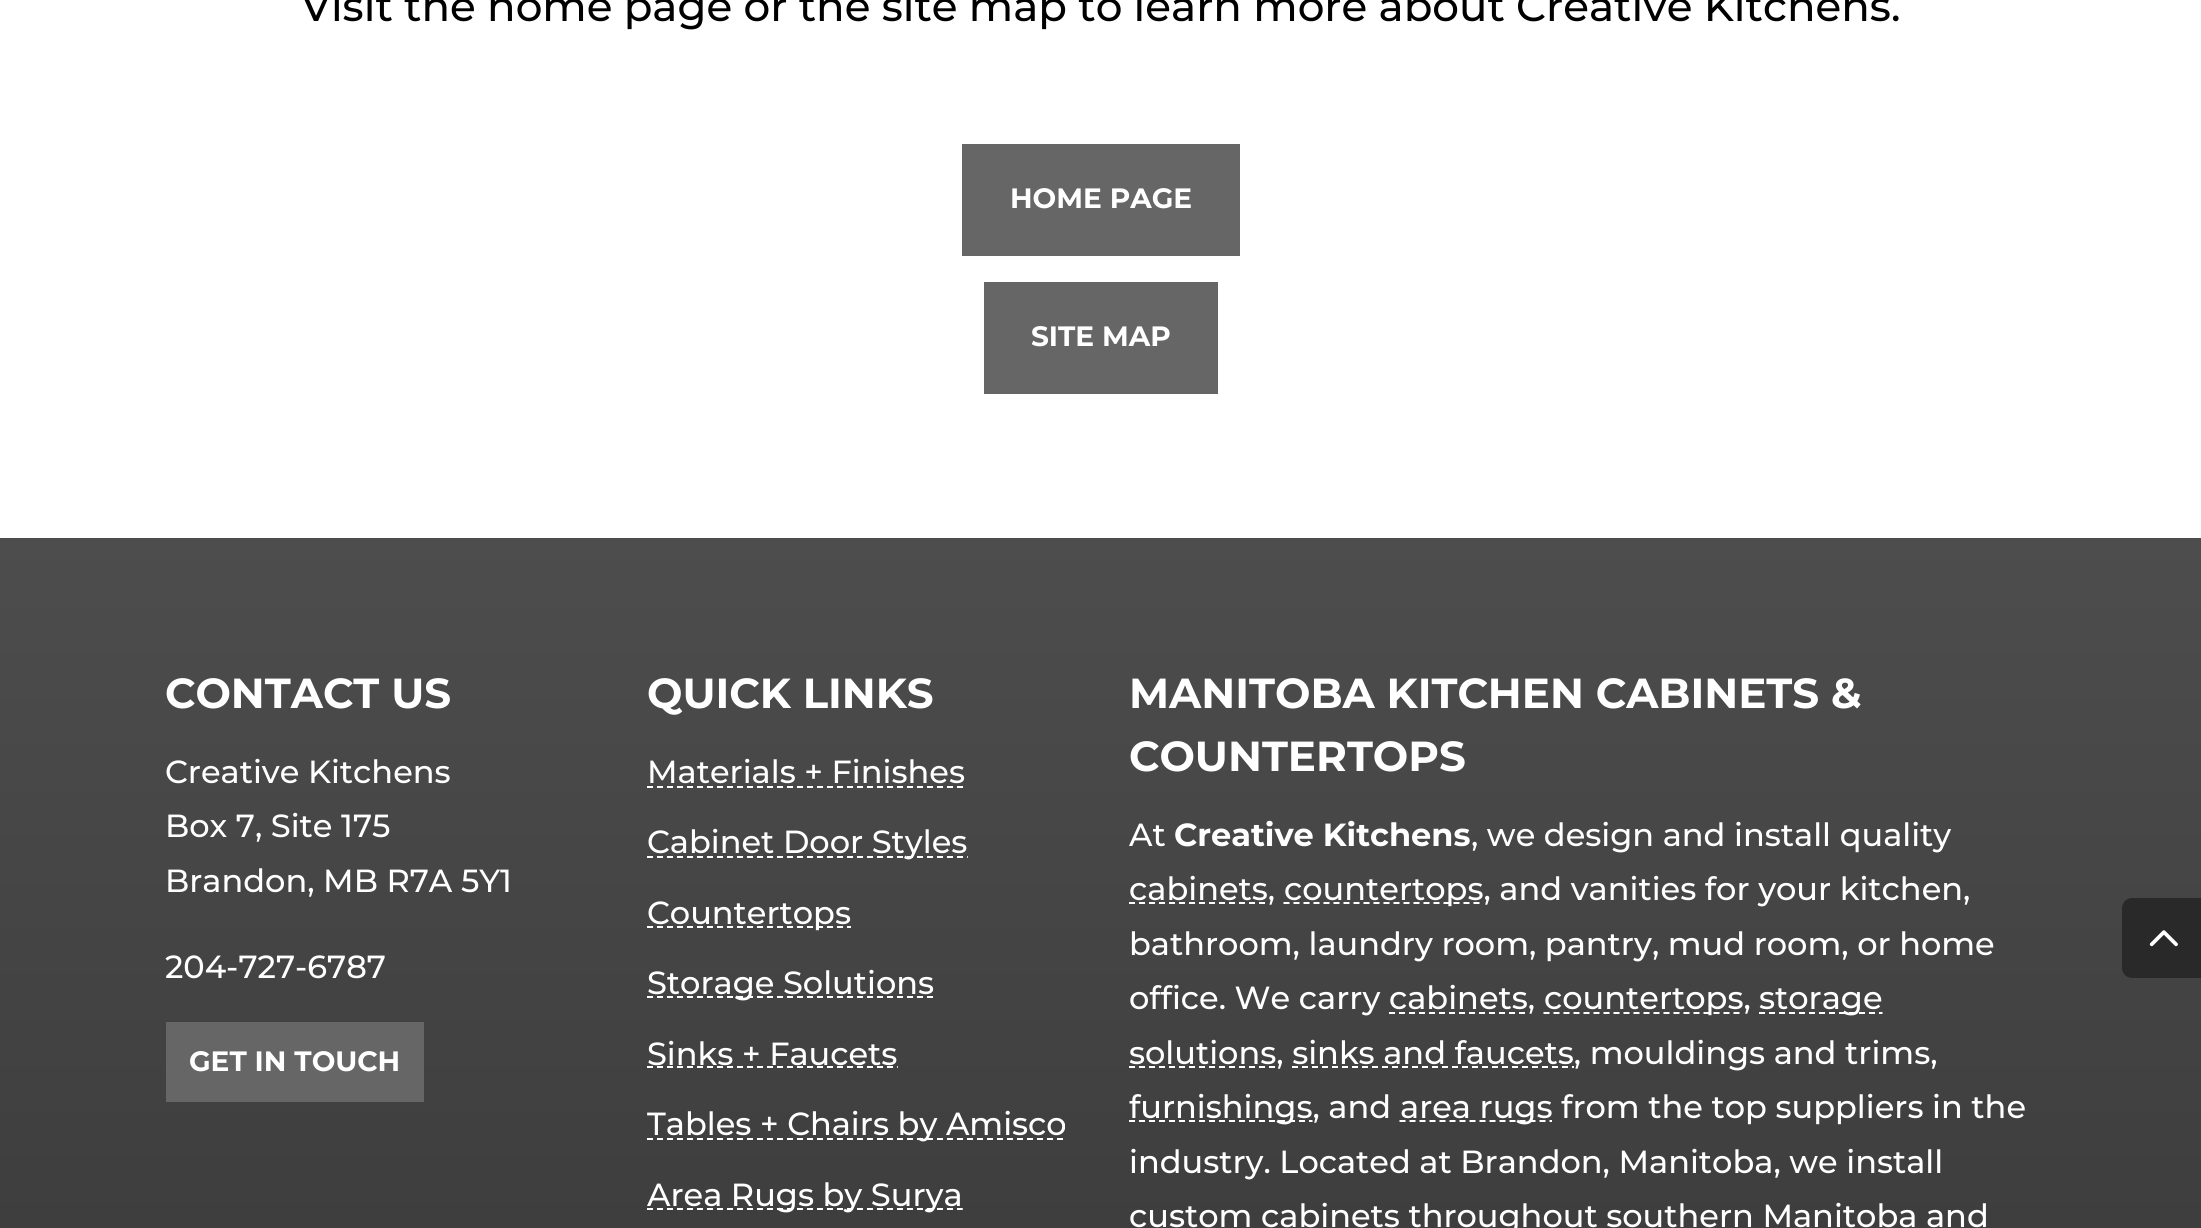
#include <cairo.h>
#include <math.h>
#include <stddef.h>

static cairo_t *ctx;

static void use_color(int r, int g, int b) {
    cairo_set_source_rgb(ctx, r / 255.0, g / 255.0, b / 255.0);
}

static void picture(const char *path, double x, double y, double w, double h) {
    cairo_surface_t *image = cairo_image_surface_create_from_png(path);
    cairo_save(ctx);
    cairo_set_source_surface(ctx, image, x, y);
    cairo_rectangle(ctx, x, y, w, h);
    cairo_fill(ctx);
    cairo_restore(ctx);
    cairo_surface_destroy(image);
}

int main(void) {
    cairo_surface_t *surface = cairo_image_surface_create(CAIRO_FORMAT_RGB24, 2201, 1228);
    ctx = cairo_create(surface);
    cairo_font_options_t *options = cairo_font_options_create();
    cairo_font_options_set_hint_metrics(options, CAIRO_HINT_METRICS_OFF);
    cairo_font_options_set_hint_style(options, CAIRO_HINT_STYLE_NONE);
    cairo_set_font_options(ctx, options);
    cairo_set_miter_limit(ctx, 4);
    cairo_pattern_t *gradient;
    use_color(255, 255, 255);
    cairo_paint(ctx);
    cairo_select_font_face(ctx, "Montserrat Medium", CAIRO_FONT_SLANT_NORMAL, CAIRO_FONT_WEIGHT_NORMAL);
    cairo_set_font_size(ctx, 42);
    use_color(0, 0, 0);
    cairo_move_to(ctx, 301, 21);
    cairo_show_text(ctx, "Visit the home page or the site map to learn more about Creative Kitchens.");
    use_color(102, 102, 102);
    cairo_rectangle(ctx, 962, 144, 278, 112);
    cairo_fill(ctx);
    cairo_select_font_face(ctx, "Montserrat", CAIRO_FONT_SLANT_NORMAL, CAIRO_FONT_WEIGHT_BOLD);
    cairo_set_font_size(ctx, 28);
    use_color(255, 255, 255);
    cairo_move_to(ctx, 1010, 208);
    cairo_show_text(ctx, "HOME PAGE");
    use_color(102, 102, 102);
    cairo_rectangle(ctx, 984, 282, 234, 112);
    cairo_fill(ctx);
    use_color(255, 255, 255);
    cairo_move_to(ctx, 1031, 346);
    cairo_show_text(ctx, "SITE MAP");
    gradient = cairo_pattern_create_linear(1101, 538, 1101, 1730);
    cairo_pattern_add_color_stop_rgba(gradient, 0, 0.302, 0.302, 0.302, 1);
    cairo_pattern_add_color_stop_rgba(gradient, 1, 0.2, 0.2, 0.2, 1);
    cairo_set_source(ctx, gradient);
    cairo_pattern_destroy(gradient);
    cairo_rectangle(ctx, 0, 538, 2201, 690);
    cairo_fill(ctx);
    cairo_set_font_size(ctx, 42);
    use_color(255, 255, 255);
    cairo_move_to(ctx, 165, 708);
    cairo_show_text(ctx, "CONTACT US");
    cairo_select_font_face(ctx, "Montserrat Medium", CAIRO_FONT_SLANT_NORMAL, CAIRO_FONT_WEIGHT_NORMAL);
    cairo_set_font_size(ctx, 32);
    cairo_move_to(ctx, 165, 783);
    cairo_show_text(ctx, "Creative Kitchens");
    cairo_move_to(ctx, 165, 837);
    cairo_show_text(ctx, "Box 7, Site 175");
    cairo_move_to(ctx, 165, 892);
    cairo_show_text(ctx, "Brandon, MB R7A 5Y1");
    cairo_move_to(ctx, 165, 978);
    cairo_show_text(ctx, "204-727-6787");
    use_color(102, 102, 102);
    cairo_rectangle(ctx, 166, 1022, 258, 80);
    cairo_fill(ctx);
    cairo_select_font_face(ctx, "Montserrat", CAIRO_FONT_SLANT_NORMAL, CAIRO_FONT_WEIGHT_BOLD);
    cairo_set_font_size(ctx, 28);
    use_color(255, 255, 255);
    cairo_move_to(ctx, 189, 1071);
    cairo_show_text(ctx, "GET IN TOUCH");
    cairo_set_font_size(ctx, 42);
    cairo_move_to(ctx, 647, 708);
    cairo_show_text(ctx, "QUICK LINKS");
    cairo_select_font_face(ctx, "Montserrat Medium", CAIRO_FONT_SLANT_NORMAL, CAIRO_FONT_WEIGHT_NORMAL);
    cairo_set_font_size(ctx, 32);
    cairo_move_to(ctx, 647, 783);
    cairo_show_text(ctx, "Materials + Finishes");
    cairo_new_path(ctx);
    cairo_move_to(ctx, 647, 787);
    cairo_line_to(ctx, 965, 787);
    cairo_set_dash(ctx, (double[]){6, 4}, 2, 0);
    cairo_stroke(ctx);
    cairo_new_path(ctx);
    cairo_move_to(ctx, 647, 857);
    cairo_line_to(ctx, 967.5, 857);
    cairo_stroke(ctx);
    cairo_new_path(ctx);
    cairo_move_to(ctx, 647, 857);
    cairo_line_to(ctx, 967.5, 857);
    cairo_stroke(ctx);
    cairo_move_to(ctx, 647, 853);
    cairo_show_text(ctx, "Cabinet Door Styles");
    cairo_new_path(ctx);
    cairo_move_to(ctx, 647, 927);
    cairo_line_to(ctx, 851, 927);
    cairo_stroke(ctx);
    cairo_move_to(ctx, 647, 924);
    cairo_show_text(ctx, "Countertops");
    cairo_new_path(ctx);
    cairo_move_to(ctx, 647, 997);
    cairo_line_to(ctx, 934, 997);
    cairo_stroke(ctx);
    cairo_move_to(ctx, 647, 994);
    cairo_show_text(ctx, "Storage Solutions");
    cairo_move_to(ctx, 647, 1065);
    cairo_show_text(ctx, "Sinks + Faucets");
    cairo_new_path(ctx);
    cairo_move_to(ctx, 647, 1067);
    cairo_line_to(ctx, 897.5, 1067);
    cairo_stroke(ctx);
    cairo_new_path(ctx);
    cairo_move_to(ctx, 647, 1067);
    cairo_line_to(ctx, 897.5, 1067);
    cairo_stroke(ctx);
    cairo_new_path(ctx);
    cairo_move_to(ctx, 647, 1139);
    cairo_line_to(ctx, 1067, 1139);
    cairo_stroke(ctx);
    cairo_move_to(ctx, 647, 1135);
    cairo_show_text(ctx, "Tables + Chairs by Amisco");
    cairo_new_path(ctx);
    cairo_move_to(ctx, 647, 1209);
    cairo_line_to(ctx, 962.5, 1209);
    cairo_stroke(ctx);
    cairo_new_path(ctx);
    cairo_move_to(ctx, 647, 1209);
    cairo_line_to(ctx, 962.5, 1209);
    cairo_stroke(ctx);
    cairo_move_to(ctx, 647, 1206);
    cairo_show_text(ctx, "Area Rugs by Surya");
    cairo_select_font_face(ctx, "Montserrat", CAIRO_FONT_SLANT_NORMAL, CAIRO_FONT_WEIGHT_BOLD);
    cairo_set_font_size(ctx, 42);
    cairo_move_to(ctx, 1129, 708);
    cairo_show_text(ctx, "MANITOBA KITCHEN CABINETS &");
    cairo_move_to(ctx, 1129, 771);
    cairo_show_text(ctx, "COUNTERTOPS");
    cairo_select_font_face(ctx, "Montserrat Medium", CAIRO_FONT_SLANT_NORMAL, CAIRO_FONT_WEIGHT_NORMAL);
    cairo_set_font_size(ctx, 32);
    cairo_move_to(ctx, 1129, 846);
    cairo_show_text(ctx, "At");
    cairo_select_font_face(ctx, "Montserrat", CAIRO_FONT_SLANT_NORMAL, CAIRO_FONT_WEIGHT_BOLD);
    cairo_move_to(ctx, 1174, 846);
    cairo_show_text(ctx, "Creative Kitchens");
    cairo_select_font_face(ctx, "Montserrat Medium", CAIRO_FONT_SLANT_NORMAL, CAIRO_FONT_WEIGHT_NORMAL);
    cairo_move_to(ctx, 1471, 846);
    cairo_show_text(ctx, ", we design and install quality");
    cairo_new_path(ctx);
    cairo_move_to(ctx, 1129, 903);
    cairo_line_to(ctx, 1268, 903);
    cairo_stroke(ctx);
    cairo_move_to(ctx, 1129, 900);
    cairo_show_text(ctx, "cabinets,");
    cairo_new_path(ctx);
    cairo_move_to(ctx, 1283.5, 903);
    cairo_line_to(ctx, 1483, 903);
    cairo_stroke(ctx);
    cairo_move_to(ctx, 1284, 900);
    cairo_show_text(ctx, "countertops, and vanities for your kitchen,");
    cairo_move_to(ctx, 1129, 955);
    cairo_show_text(ctx, "bathroom, laundry room, pantry, mud room, or home");
    cairo_move_to(ctx, 1129, 1009);
    cairo_show_text(ctx, "office. We carry cabinets,");
    cairo_new_path(ctx);
    cairo_move_to(ctx, 1543.5, 1013);
    cairo_line_to(ctx, 1743, 1013);
    cairo_stroke(ctx);
    cairo_move_to(ctx, 1544, 1009);
    cairo_show_text(ctx, "countertops,");
    cairo_new_path(ctx);
    cairo_move_to(ctx, 1759, 1013);
    cairo_line_to(ctx, 1882.5, 1013);
    cairo_stroke(ctx);
    cairo_move_to(ctx, 1759, 1009);
    cairo_show_text(ctx, "storage");
    cairo_new_path(ctx);
    cairo_move_to(ctx, 1389, 1013);
    cairo_line_to(ctx, 1528, 1013);
    cairo_stroke(ctx);
    cairo_new_path(ctx);
    cairo_move_to(ctx, 1129, 1067);
    cairo_line_to(ctx, 1276, 1067);
    cairo_stroke(ctx);
    cairo_move_to(ctx, 1129, 1064);
    cairo_show_text(ctx, "solutions, sinks and faucets, mouldings and trims,");
    cairo_new_path(ctx);
    cairo_move_to(ctx, 1292, 1067);
    cairo_line_to(ctx, 1574, 1067);
    cairo_stroke(ctx);
    cairo_new_path(ctx);
    cairo_move_to(ctx, 1129, 1121);
    cairo_line_to(ctx, 1312.5, 1121);
    cairo_stroke(ctx);
    cairo_move_to(ctx, 1129, 1118);
    cairo_show_text(ctx, "furnishings, and");
    cairo_new_path(ctx);
    cairo_move_to(ctx, 1399.5, 1121);
    cairo_line_to(ctx, 1552, 1121);
    cairo_stroke(ctx);
    cairo_move_to(ctx, 1400, 1118);
    cairo_show_text(ctx, "area rugs from the top suppliers in the");
    cairo_move_to(ctx, 1129, 1173);
    cairo_show_text(ctx, "industry. Located at Brandon, Manitoba, we install");
    cairo_move_to(ctx, 1129, 1227);
    cairo_show_text(ctx, "custom cabinets throughout southern Manitoba and");
    use_color(41, 41, 41);
    cairo_new_path(ctx);
    cairo_move_to(ctx, 2132, 898);
    cairo_line_to(ctx, 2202, 898);
    cairo_line_to(ctx, 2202, 978);
    cairo_line_to(ctx, 2132, 978);
    cairo_curve_to(ctx, 2126.5, 978, 2122, 973.5, 2122, 968);
    cairo_line_to(ctx, 2122, 908);
    cairo_curve_to(ctx, 2122, 902.5, 2126.5, 898, 2132, 898);
    cairo_close_path(ctx);
    cairo_fill(ctx);
    picture("img1.png", 2149, 930, 29, 17);
    cairo_surface_write_to_png(surface, "result.png");
    cairo_font_options_destroy(options);
    cairo_destroy(ctx);
    cairo_surface_destroy(surface);
    return 0;
}
